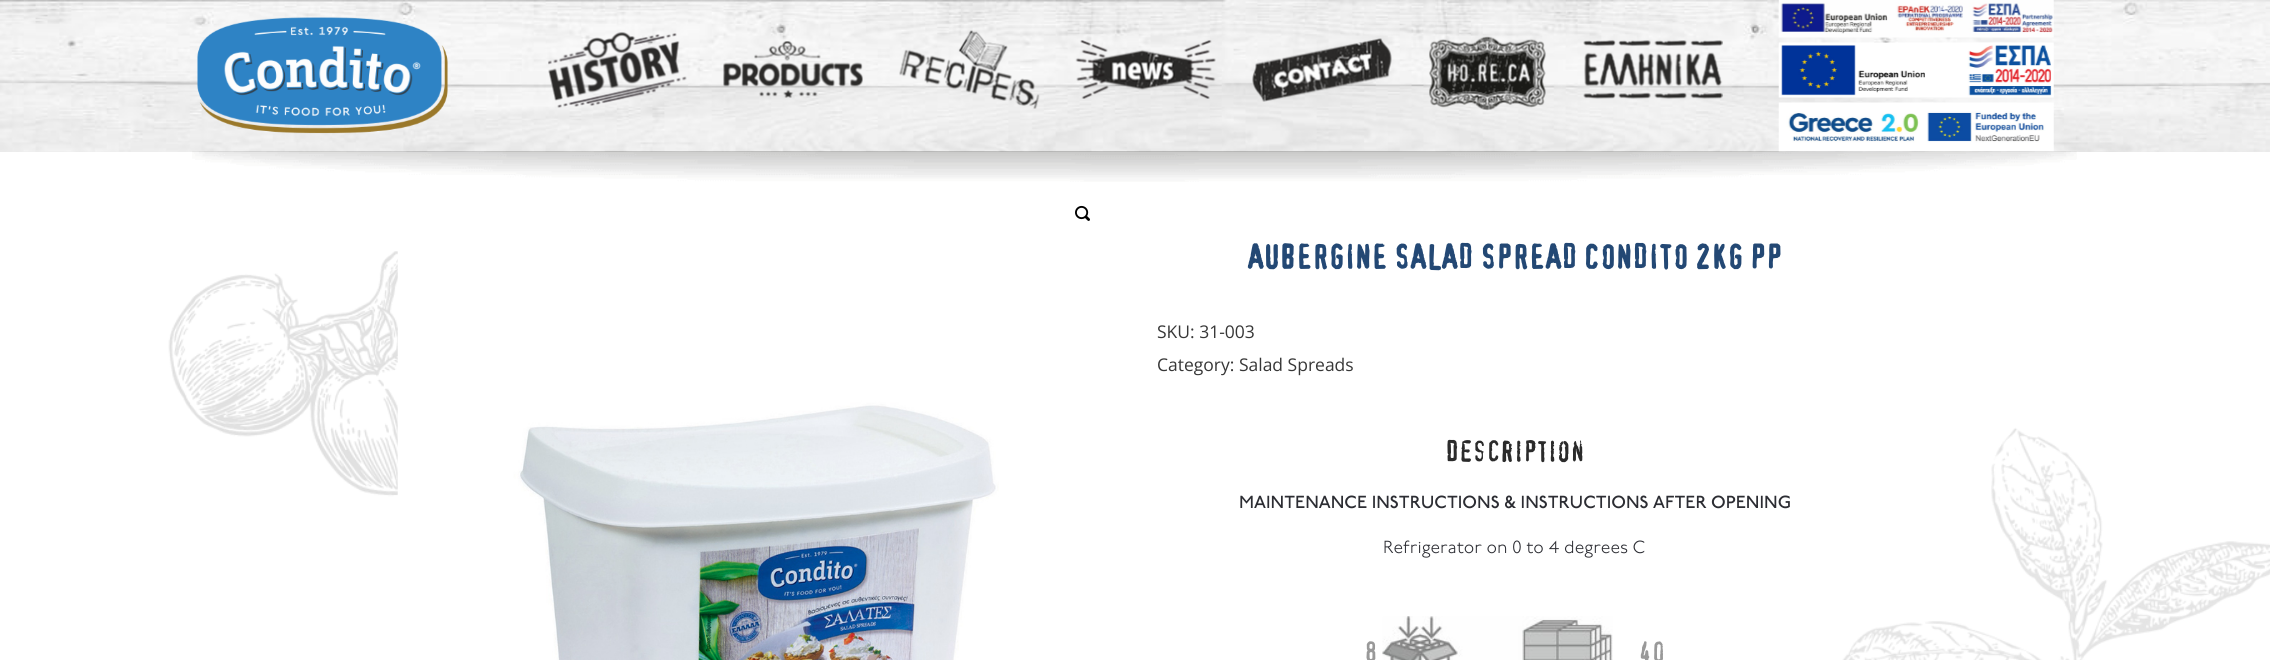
#include <cairo.h>
#include <math.h>
#include <stddef.h>

static cairo_t *ctx;

static void use_color(int r, int g, int b) {
    cairo_set_source_rgb(ctx, r / 255.0, g / 255.0, b / 255.0);
}

static void picture(const char *path, double x, double y, double w, double h) {
    cairo_surface_t *image = cairo_image_surface_create_from_png(path);
    cairo_save(ctx);
    cairo_set_source_surface(ctx, image, x, y);
    cairo_rectangle(ctx, x, y, w, h);
    cairo_fill(ctx);
    cairo_restore(ctx);
    cairo_surface_destroy(image);
}

int main(void) {
    cairo_surface_t *surface = cairo_image_surface_create(CAIRO_FORMAT_RGB24, 2270, 660);
    ctx = cairo_create(surface);
    cairo_font_options_t *options = cairo_font_options_create();
    cairo_font_options_set_hint_metrics(options, CAIRO_HINT_METRICS_OFF);
    cairo_font_options_set_hint_style(options, CAIRO_HINT_STYLE_NONE);
    cairo_set_font_options(ctx, options);
    cairo_set_miter_limit(ctx, 4);
    use_color(255, 255, 255);
    cairo_paint(ctx);
    picture("img1.png", 168, 251, 2102, 409);
    picture("img2.png", 0, 0, 2270, 152);
    picture("img3.png", 197, 17, 251, 117);
    picture("img4.png", 548, 32, 139, 76);
    picture("img5.png", 723, 41, 140, 57);
    picture("img6.png", 899, 30, 141, 79);
    picture("img7.png", 1075, 40, 141, 59);
    picture("img8.png", 1252, 38, 140, 64);
    picture("img9.png", 1429, 36, 117, 75);
    picture("img10.png", 1583, 40, 140, 59);
    picture("img11.png", 1778, 0, 276, 38);
    picture("img12.png", 1778, 42, 276, 56);
    picture("img14.png", 192, 151, 1885, 31);
    picture("img13.png", 1778, 102, 276, 50);
    picture("img15.png", 1075, 205, 15, 16);
    picture("img16.png", 397, 251, 602, 409);
    cairo_select_font_face(ctx, "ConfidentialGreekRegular", CAIRO_FONT_SLANT_NORMAL, CAIRO_FONT_WEIGHT_BOLD);
    cairo_set_font_size(ctx, 32.5);
    use_color(35, 72, 116);
    cairo_move_to(ctx, 1247, 269);
    cairo_show_text(ctx, "AUBERGINE SALAD SPREAD CONDITO 2KG PP");
    cairo_select_font_face(ctx, "Open Sans", CAIRO_FONT_SLANT_NORMAL, CAIRO_FONT_WEIGHT_NORMAL);
    cairo_set_font_size(ctx, 17.5);
    use_color(55, 55, 55);
    cairo_move_to(ctx, 1157, 338);
    cairo_show_text(ctx, "SKU: 31-003");
    cairo_move_to(ctx, 1157, 371);
    cairo_show_text(ctx, "Category: Salad Spreads");
    cairo_select_font_face(ctx, "ConfidentialGreekRegular", CAIRO_FONT_SLANT_NORMAL, CAIRO_FONT_WEIGHT_BOLD);
    cairo_set_font_size(ctx, 27.5);
    use_color(43, 43, 43);
    cairo_move_to(ctx, 1445, 462);
    cairo_show_text(ctx, "Description");
    cairo_select_font_face(ctx, "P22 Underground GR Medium", CAIRO_FONT_SLANT_NORMAL, CAIRO_FONT_WEIGHT_NORMAL);
    cairo_set_font_size(ctx, 17.5);
    use_color(44, 45, 51);
    cairo_move_to(ctx, 1239, 508);
    cairo_show_text(ctx, "MAINTENANCE INSTRUCTIONS & INSTRUCTIONS AFTER OPENING");
    cairo_select_font_face(ctx, "P22 Underground GR Light", CAIRO_FONT_SLANT_NORMAL, CAIRO_FONT_WEIGHT_NORMAL);
    cairo_move_to(ctx, 1383, 553);
    cairo_show_text(ctx, "Refrigerator on 0 to 4 degrees C");
    cairo_select_font_face(ctx, "ConfidentialGreekRegular", CAIRO_FONT_SLANT_NORMAL, CAIRO_FONT_WEIGHT_NORMAL);
    cairo_set_font_size(ctx, 27.5);
    use_color(153, 153, 153);
    cairo_move_to(ctx, 1364, 662);
    cairo_show_text(ctx, "8");
    picture("img17.png", 1382, 616, 231, 44);
    cairo_move_to(ctx, 1638, 662);
    cairo_show_text(ctx, "40");
    cairo_surface_write_to_png(surface, "result.png");
    cairo_font_options_destroy(options);
    cairo_destroy(ctx);
    cairo_surface_destroy(surface);
    return 0;
}
